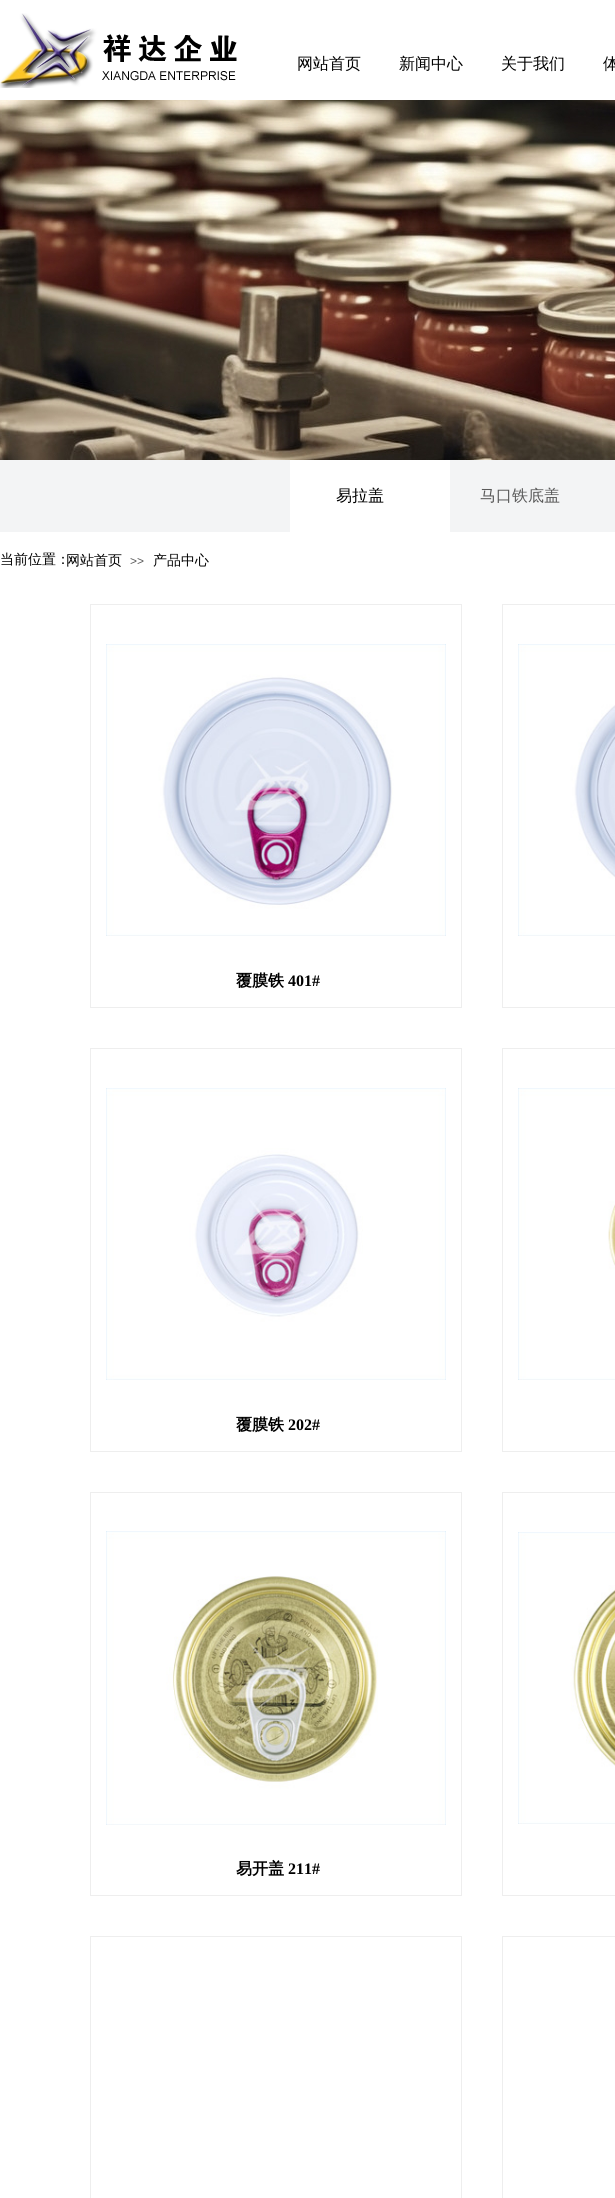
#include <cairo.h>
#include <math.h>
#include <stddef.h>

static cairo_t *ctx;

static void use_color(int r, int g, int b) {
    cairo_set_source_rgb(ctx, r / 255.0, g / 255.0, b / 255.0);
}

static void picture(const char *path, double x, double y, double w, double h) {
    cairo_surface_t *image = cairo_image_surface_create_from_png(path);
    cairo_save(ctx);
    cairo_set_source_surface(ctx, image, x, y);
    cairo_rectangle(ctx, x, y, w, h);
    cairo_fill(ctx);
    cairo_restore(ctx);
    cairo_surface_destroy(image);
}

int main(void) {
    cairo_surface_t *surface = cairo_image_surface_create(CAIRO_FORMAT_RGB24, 615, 2198);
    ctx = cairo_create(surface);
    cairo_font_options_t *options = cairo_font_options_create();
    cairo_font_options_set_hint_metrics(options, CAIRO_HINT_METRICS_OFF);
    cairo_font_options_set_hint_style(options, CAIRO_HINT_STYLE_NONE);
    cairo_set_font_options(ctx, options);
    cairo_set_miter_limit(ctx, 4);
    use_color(255, 255, 255);
    cairo_paint(ctx);
    picture("img1.png", 0, 13, 237, 75);
    cairo_select_font_face(ctx, "WenQuanYi Zen Hei Medium", CAIRO_FONT_SLANT_NORMAL, CAIRO_FONT_WEIGHT_NORMAL);
    cairo_set_font_size(ctx, 16);
    use_color(0, 0, 0);
    cairo_move_to(ctx, 297, 69);
    cairo_show_text(ctx, "网站首页");
    cairo_move_to(ctx, 399, 69);
    cairo_show_text(ctx, "新闻中心");
    cairo_move_to(ctx, 501, 69);
    cairo_show_text(ctx, "关于我们");
    cairo_move_to(ctx, 603, 69);
    cairo_show_text(ctx, "体");
    picture("img2.png", 0, 100, 615, 360);
    use_color(243, 244, 245);
    cairo_rectangle(ctx, 0, 460, 615, 72);
    cairo_fill(ctx);
    use_color(255, 255, 255);
    cairo_rectangle(ctx, 290, 460, 160, 72);
    cairo_fill(ctx);
    use_color(0, 0, 0);
    cairo_move_to(ctx, 336, 501);
    cairo_show_text(ctx, "易拉盖");
    use_color(90, 90, 90);
    cairo_move_to(ctx, 480, 501);
    cairo_show_text(ctx, "马口铁底盖");
    cairo_set_font_size(ctx, 14);
    use_color(0, 0, 0);
    cairo_move_to(ctx, 0, 564);
    cairo_show_text(ctx, "当前位置：");
    cairo_move_to(ctx, 66, 565);
    cairo_show_text(ctx, "网站首页");
    cairo_select_font_face(ctx, "Liberation Sans", CAIRO_FONT_SLANT_NORMAL, CAIRO_FONT_WEIGHT_NORMAL);
    cairo_set_font_size(ctx, 12);
    use_color(90, 90, 90);
    cairo_move_to(ctx, 130, 565);
    cairo_show_text(ctx, ">>");
    cairo_select_font_face(ctx, "WenQuanYi Zen Hei Medium", CAIRO_FONT_SLANT_NORMAL, CAIRO_FONT_WEIGHT_NORMAL);
    cairo_set_font_size(ctx, 14);
    use_color(0, 0, 0);
    cairo_move_to(ctx, 153, 565);
    cairo_show_text(ctx, "产品中心");
    cairo_rectangle(ctx, 90.5, 604.5, 371, 403);
    use_color(238, 238, 238);
    cairo_set_line_width(ctx, 1);
    cairo_stroke(ctx);
    picture("img3.png", 106, 644, 340, 292);
    cairo_select_font_face(ctx, "WenQuanYi Zen Hei", CAIRO_FONT_SLANT_NORMAL, CAIRO_FONT_WEIGHT_BOLD);
    cairo_set_font_size(ctx, 16);
    use_color(0, 0, 0);
    cairo_move_to(ctx, 236, 986);
    cairo_show_text(ctx, "覆膜铁");
    cairo_select_font_face(ctx, "Liberation Serif", CAIRO_FONT_SLANT_NORMAL, CAIRO_FONT_WEIGHT_BOLD);
    cairo_move_to(ctx, 288, 986);
    cairo_show_text(ctx, "401#");
    cairo_rectangle(ctx, 502.5, 604.5, 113, 403);
    use_color(238, 238, 238);
    cairo_stroke(ctx);
    picture("img4.png", 518, 644, 97, 292);
    cairo_rectangle(ctx, 90.5, 1048.5, 371, 403);
    cairo_stroke(ctx);
    picture("img5.png", 106, 1088, 340, 292);
    cairo_select_font_face(ctx, "WenQuanYi Zen Hei", CAIRO_FONT_SLANT_NORMAL, CAIRO_FONT_WEIGHT_BOLD);
    use_color(0, 0, 0);
    cairo_move_to(ctx, 236, 1430);
    cairo_show_text(ctx, "覆膜铁");
    cairo_select_font_face(ctx, "Liberation Serif", CAIRO_FONT_SLANT_NORMAL, CAIRO_FONT_WEIGHT_BOLD);
    cairo_move_to(ctx, 288, 1430);
    cairo_show_text(ctx, "202#");
    cairo_rectangle(ctx, 502.5, 1048.5, 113, 403);
    use_color(238, 238, 238);
    cairo_stroke(ctx);
    picture("img6.png", 518, 1088, 97, 292);
    cairo_rectangle(ctx, 90.5, 1492.5, 371, 403);
    cairo_stroke(ctx);
    picture("img7.png", 106, 1531, 340, 294);
    cairo_select_font_face(ctx, "WenQuanYi Zen Hei", CAIRO_FONT_SLANT_NORMAL, CAIRO_FONT_WEIGHT_BOLD);
    use_color(0, 0, 0);
    cairo_move_to(ctx, 236, 1874);
    cairo_show_text(ctx, "易开盖");
    cairo_select_font_face(ctx, "Liberation Serif", CAIRO_FONT_SLANT_NORMAL, CAIRO_FONT_WEIGHT_BOLD);
    cairo_move_to(ctx, 288, 1874);
    cairo_show_text(ctx, "211#");
    cairo_rectangle(ctx, 502.5, 1492.5, 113, 403);
    use_color(238, 238, 238);
    cairo_stroke(ctx);
    picture("img8.png", 518, 1532, 97, 292);
    cairo_rectangle(ctx, 90.5, 1936.5, 371, 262);
    cairo_stroke(ctx);
    cairo_rectangle(ctx, 502.5, 1936.5, 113, 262);
    cairo_stroke(ctx);
    cairo_surface_write_to_png(surface, "result.png");
    cairo_font_options_destroy(options);
    cairo_destroy(ctx);
    cairo_surface_destroy(surface);
    return 0;
}
